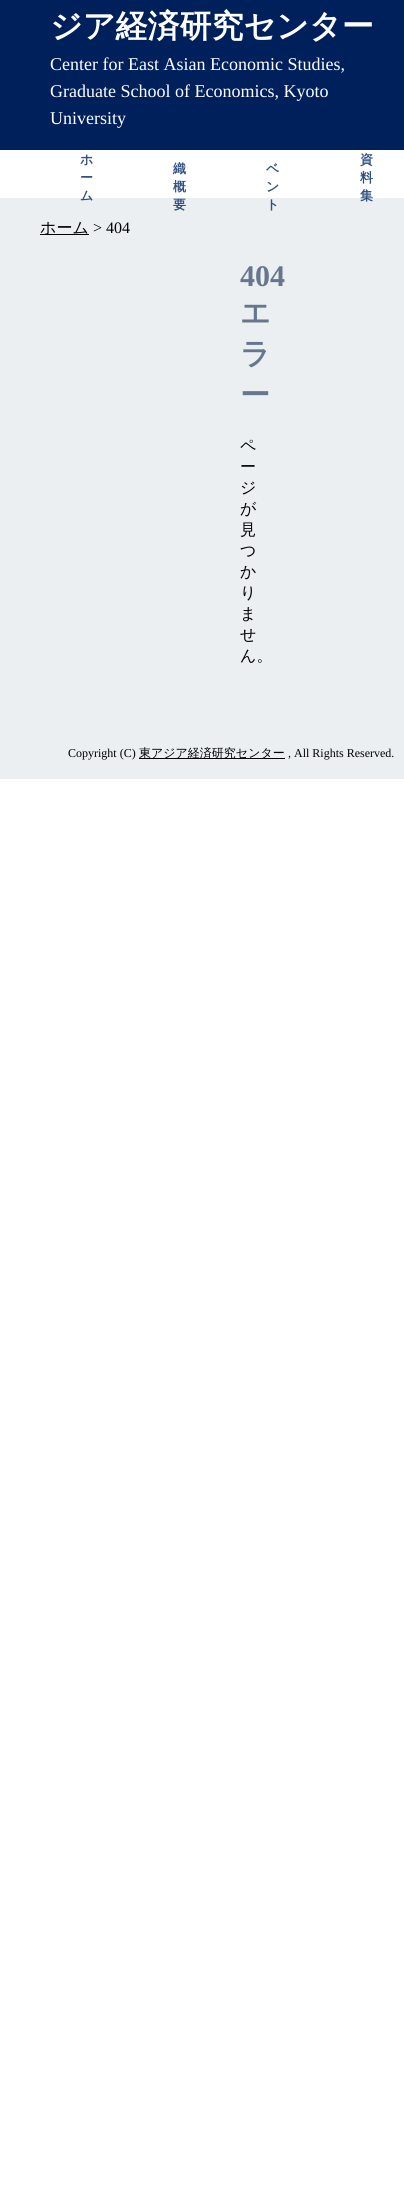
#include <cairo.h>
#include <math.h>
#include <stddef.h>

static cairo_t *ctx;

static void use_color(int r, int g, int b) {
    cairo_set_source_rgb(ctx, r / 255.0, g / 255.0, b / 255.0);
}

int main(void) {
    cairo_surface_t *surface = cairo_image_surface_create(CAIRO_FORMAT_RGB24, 404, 2200);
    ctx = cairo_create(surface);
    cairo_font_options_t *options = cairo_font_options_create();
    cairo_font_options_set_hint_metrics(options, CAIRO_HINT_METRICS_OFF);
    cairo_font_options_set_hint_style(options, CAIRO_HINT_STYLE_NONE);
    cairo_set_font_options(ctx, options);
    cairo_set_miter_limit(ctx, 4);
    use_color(255, 255, 255);
    cairo_paint(ctx);
    use_color(0, 32, 91);
    cairo_rectangle(ctx, 0, 0, 404, 150);
    cairo_fill(ctx);
    cairo_select_font_face(ctx, "WenQuanYi Zen Hei", CAIRO_FONT_SLANT_NORMAL, CAIRO_FONT_WEIGHT_BOLD);
    cairo_set_font_size(ctx, 32);
    use_color(255, 255, 255);
    cairo_move_to(ctx, 50, 37);
    cairo_show_text(ctx, "ジア経済研究センター");
    cairo_select_font_face(ctx, "Liberation Serif", CAIRO_FONT_SLANT_NORMAL, CAIRO_FONT_WEIGHT_NORMAL);
    cairo_set_font_size(ctx, 18);
    cairo_move_to(ctx, 50, 70);
    cairo_show_text(ctx, "Center for East Asian Economic Studies,");
    cairo_move_to(ctx, 50, 97);
    cairo_show_text(ctx, "Graduate School of Economics, Kyoto");
    cairo_move_to(ctx, 50, 124);
    cairo_show_text(ctx, "University");
    use_color(235, 239, 242);
    cairo_rectangle(ctx, 0, 198, 404, 581);
    cairo_fill(ctx);
    cairo_select_font_face(ctx, "WenQuanYi Zen Hei", CAIRO_FONT_SLANT_NORMAL, CAIRO_FONT_WEIGHT_BOLD);
    cairo_set_font_size(ctx, 13);
    use_color(48, 80, 128);
    cairo_move_to(ctx, 80, 164);
    cairo_show_text(ctx, "ホ");
    cairo_move_to(ctx, 80, 182);
    cairo_show_text(ctx, "ー");
    cairo_move_to(ctx, 80, 200);
    cairo_show_text(ctx, "ム");
    cairo_move_to(ctx, 173, 173);
    cairo_show_text(ctx, "織");
    cairo_move_to(ctx, 173, 191);
    cairo_show_text(ctx, "概");
    cairo_move_to(ctx, 173, 209);
    cairo_show_text(ctx, "要");
    cairo_move_to(ctx, 266, 173);
    cairo_show_text(ctx, "ベ");
    cairo_move_to(ctx, 266, 191);
    cairo_show_text(ctx, "ン");
    cairo_move_to(ctx, 266, 209);
    cairo_show_text(ctx, "ト");
    cairo_move_to(ctx, 360, 164);
    cairo_show_text(ctx, "資");
    cairo_move_to(ctx, 360, 182);
    cairo_show_text(ctx, "料");
    cairo_move_to(ctx, 360, 200);
    cairo_show_text(ctx, "集");
    use_color(0, 0, 0);
    cairo_rectangle(ctx, 40, 234, 49, 1);
    cairo_fill(ctx);
    cairo_select_font_face(ctx, "WenQuanYi Zen Hei Medium", CAIRO_FONT_SLANT_NORMAL, CAIRO_FONT_WEIGHT_NORMAL);
    cairo_set_font_size(ctx, 16);
    cairo_move_to(ctx, 40, 233);
    cairo_show_text(ctx, "ホーム");
    cairo_select_font_face(ctx, "Liberation Serif", CAIRO_FONT_SLANT_NORMAL, CAIRO_FONT_WEIGHT_NORMAL);
    cairo_move_to(ctx, 93, 233);
    cairo_show_text(ctx, "> 404");
    cairo_select_font_face(ctx, "Liberation Serif", CAIRO_FONT_SLANT_NORMAL, CAIRO_FONT_WEIGHT_BOLD);
    cairo_set_font_size(ctx, 30);
    use_color(103, 118, 140);
    cairo_move_to(ctx, 240, 286);
    cairo_show_text(ctx, "404");
    cairo_select_font_face(ctx, "WenQuanYi Zen Hei", CAIRO_FONT_SLANT_NORMAL, CAIRO_FONT_WEIGHT_BOLD);
    cairo_move_to(ctx, 240, 323);
    cairo_show_text(ctx, "エ");
    cairo_move_to(ctx, 240, 364);
    cairo_show_text(ctx, "ラ");
    cairo_move_to(ctx, 240, 405);
    cairo_show_text(ctx, "ー");
    cairo_select_font_face(ctx, "WenQuanYi Zen Hei Medium", CAIRO_FONT_SLANT_NORMAL, CAIRO_FONT_WEIGHT_NORMAL);
    cairo_set_font_size(ctx, 16);
    use_color(0, 0, 0);
    cairo_move_to(ctx, 240, 451);
    cairo_show_text(ctx, "ペ");
    cairo_move_to(ctx, 240, 472);
    cairo_show_text(ctx, "ー");
    cairo_move_to(ctx, 240, 493);
    cairo_show_text(ctx, "ジ");
    cairo_move_to(ctx, 240, 514);
    cairo_show_text(ctx, "が");
    cairo_move_to(ctx, 240, 535);
    cairo_show_text(ctx, "見");
    cairo_move_to(ctx, 240, 556);
    cairo_show_text(ctx, "つ");
    cairo_move_to(ctx, 240, 577);
    cairo_show_text(ctx, "か");
    cairo_move_to(ctx, 240, 598);
    cairo_show_text(ctx, "り");
    cairo_move_to(ctx, 240, 619);
    cairo_show_text(ctx, "ま");
    cairo_move_to(ctx, 240, 640);
    cairo_show_text(ctx, "せ");
    cairo_move_to(ctx, 240, 661);
    cairo_show_text(ctx, "ん。");
    cairo_select_font_face(ctx, "Liberation Serif", CAIRO_FONT_SLANT_NORMAL, CAIRO_FONT_WEIGHT_NORMAL);
    cairo_set_font_size(ctx, 12);
    cairo_move_to(ctx, 68, 757);
    cairo_show_text(ctx, "Copyright (C)");
    cairo_rectangle(ctx, 139, 758, 146, 1);
    cairo_fill(ctx);
    cairo_select_font_face(ctx, "WenQuanYi Zen Hei Medium", CAIRO_FONT_SLANT_NORMAL, CAIRO_FONT_WEIGHT_NORMAL);
    cairo_move_to(ctx, 139, 757);
    cairo_show_text(ctx, "東アジア経済研究センター");
    cairo_select_font_face(ctx, "Liberation Serif", CAIRO_FONT_SLANT_NORMAL, CAIRO_FONT_WEIGHT_NORMAL);
    cairo_move_to(ctx, 288, 757);
    cairo_show_text(ctx, ", All Rights Reserved.");
    cairo_surface_write_to_png(surface, "result.png");
    cairo_font_options_destroy(options);
    cairo_destroy(ctx);
    cairo_surface_destroy(surface);
    return 0;
}
